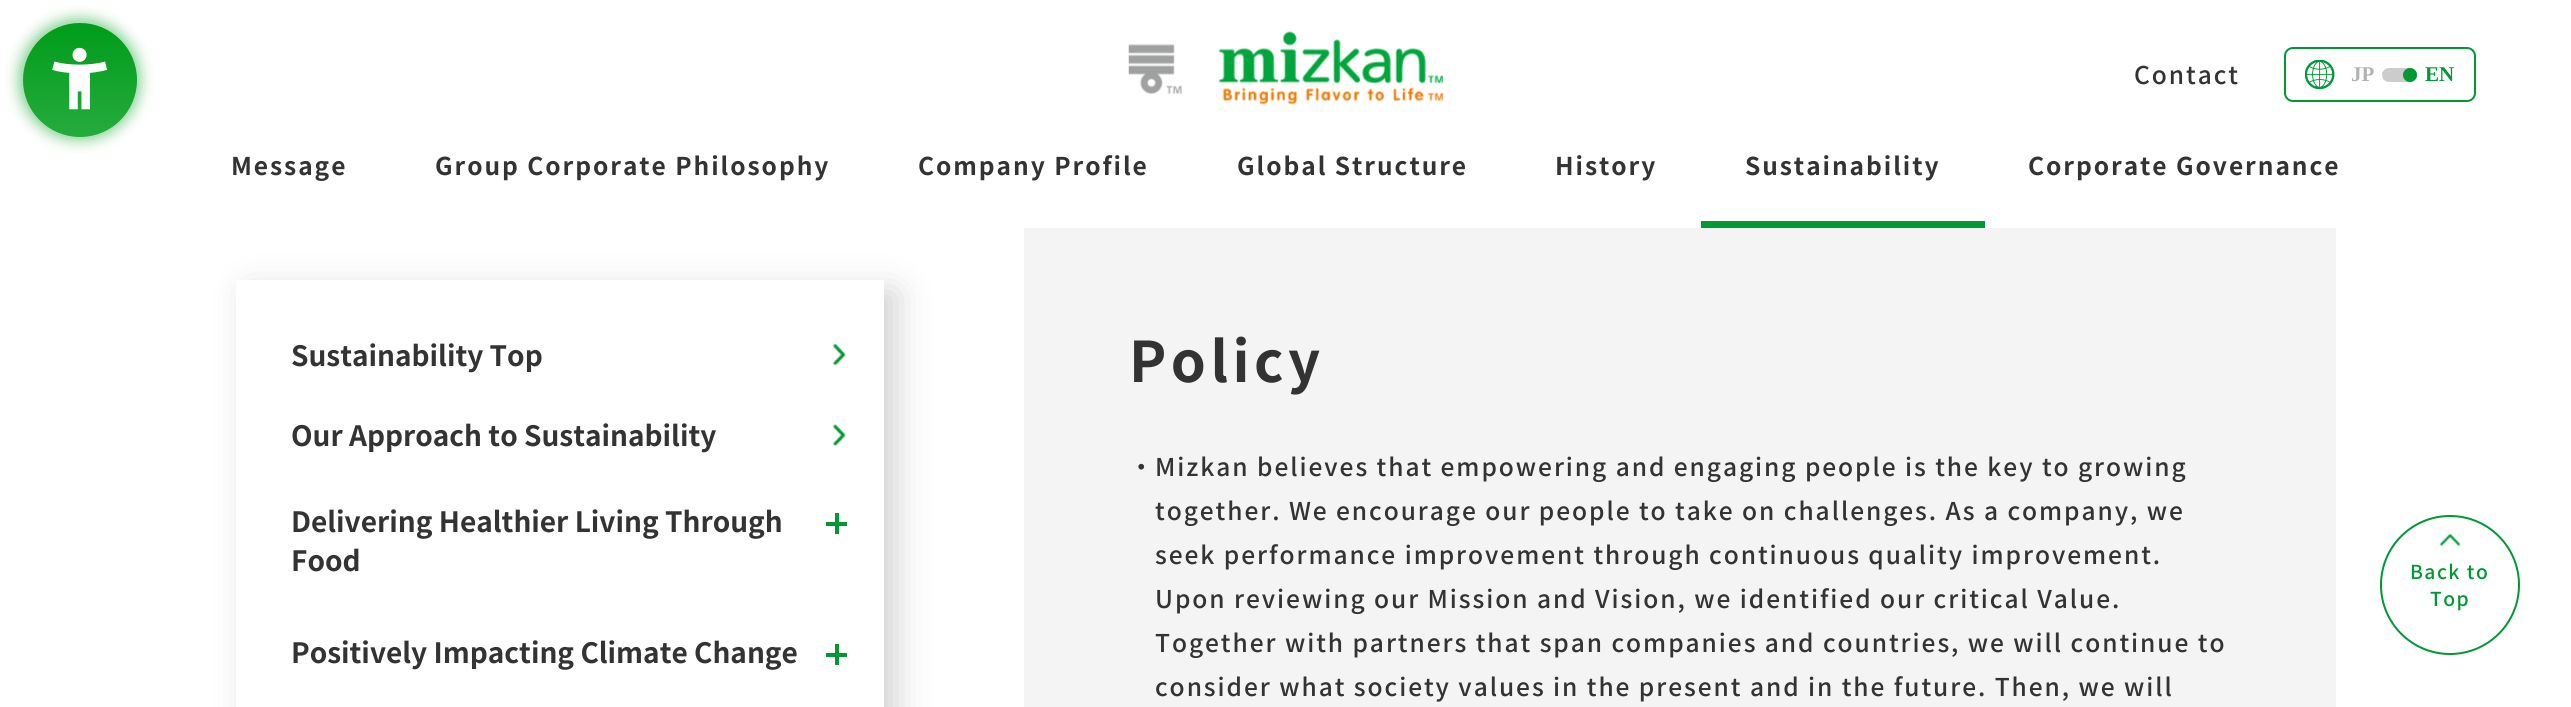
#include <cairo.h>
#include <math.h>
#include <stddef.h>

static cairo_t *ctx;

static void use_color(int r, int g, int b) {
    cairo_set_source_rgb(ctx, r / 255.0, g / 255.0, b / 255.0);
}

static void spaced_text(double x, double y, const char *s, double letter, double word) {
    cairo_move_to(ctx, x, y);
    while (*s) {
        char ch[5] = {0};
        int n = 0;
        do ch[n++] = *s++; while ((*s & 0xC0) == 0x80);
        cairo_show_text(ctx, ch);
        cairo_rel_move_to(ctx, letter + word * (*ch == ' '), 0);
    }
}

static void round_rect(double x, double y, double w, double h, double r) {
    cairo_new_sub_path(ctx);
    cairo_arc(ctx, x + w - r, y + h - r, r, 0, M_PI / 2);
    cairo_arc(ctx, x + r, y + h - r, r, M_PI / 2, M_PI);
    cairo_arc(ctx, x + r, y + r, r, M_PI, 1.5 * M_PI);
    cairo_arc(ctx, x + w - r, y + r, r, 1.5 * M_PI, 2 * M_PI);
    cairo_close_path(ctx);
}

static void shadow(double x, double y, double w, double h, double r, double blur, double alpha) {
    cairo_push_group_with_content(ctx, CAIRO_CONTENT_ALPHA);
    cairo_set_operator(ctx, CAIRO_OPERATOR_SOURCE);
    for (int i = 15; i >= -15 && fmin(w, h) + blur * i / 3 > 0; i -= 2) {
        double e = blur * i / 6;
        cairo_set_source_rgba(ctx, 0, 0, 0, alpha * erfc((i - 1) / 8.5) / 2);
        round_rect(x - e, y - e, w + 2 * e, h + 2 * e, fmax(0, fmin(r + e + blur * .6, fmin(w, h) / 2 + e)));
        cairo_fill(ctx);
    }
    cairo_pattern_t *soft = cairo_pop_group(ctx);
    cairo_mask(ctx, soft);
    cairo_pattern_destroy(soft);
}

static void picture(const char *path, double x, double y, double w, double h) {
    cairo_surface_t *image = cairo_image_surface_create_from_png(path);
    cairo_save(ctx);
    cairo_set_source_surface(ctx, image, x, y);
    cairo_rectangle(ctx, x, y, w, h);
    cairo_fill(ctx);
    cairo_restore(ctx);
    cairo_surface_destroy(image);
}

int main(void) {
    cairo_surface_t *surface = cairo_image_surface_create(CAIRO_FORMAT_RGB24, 2571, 707);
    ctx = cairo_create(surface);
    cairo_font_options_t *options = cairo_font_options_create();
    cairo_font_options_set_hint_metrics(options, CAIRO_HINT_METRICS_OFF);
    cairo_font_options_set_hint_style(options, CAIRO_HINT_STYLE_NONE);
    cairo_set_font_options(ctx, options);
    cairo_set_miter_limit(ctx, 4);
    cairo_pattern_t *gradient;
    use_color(255, 255, 255);
    cairo_paint(ctx);
    use_color(0, 156, 27);
    shadow(19, 19, 121, 121, 60.5, 7, 0.5);
    gradient = cairo_pattern_create_linear(80, 23, 80, 137);
    cairo_pattern_add_color_stop_rgba(gradient, 0, 0, 0.612, 0.106, 1);
    cairo_pattern_add_color_stop_rgba(gradient, 1, 0.149, 0.671, 0.239, 1);
    cairo_set_source(ctx, gradient);
    cairo_pattern_destroy(gradient);
    cairo_arc(ctx, 80, 80, 57, 0, 2 * M_PI);
    cairo_fill(ctx);
    picture("img1.png", 52, 47, 56, 63);
    picture("img2.png", 1128, 31, 316, 74);
    cairo_select_font_face(ctx, "Noto Sans JP Medium", CAIRO_FONT_SLANT_NORMAL, CAIRO_FONT_WEIGHT_NORMAL);
    cairo_set_font_size(ctx, 24.5);
    use_color(51, 51, 51);
    spaced_text(2134, 84, "Contact", 1.95, 0);
    round_rect(2285, 48, 190, 53, 8);
    use_color(0, 153, 51);
    cairo_stroke(ctx);
    picture("img3.png", 2305, 60, 30, 29);
    cairo_select_font_face(ctx, "Liberation Serif", CAIRO_FONT_SLANT_NORMAL, CAIRO_FONT_WEIGHT_BOLD);
    cairo_set_font_size(ctx, 21);
    use_color(178, 178, 178);
    cairo_move_to(ctx, 2351, 81);
    cairo_show_text(ctx, "JP");
    use_color(204, 204, 204);
    round_rect(2382, 68, 35, 14, 7);
    cairo_fill(ctx);
    use_color(0, 153, 51);
    cairo_arc(ctx, 2410, 75, 7, 0, 2 * M_PI);
    cairo_fill(ctx);
    cairo_move_to(ctx, 2425, 81);
    cairo_show_text(ctx, "EN");
    cairo_select_font_face(ctx, "Noto Sans JP", CAIRO_FONT_SLANT_NORMAL, CAIRO_FONT_WEIGHT_BOLD);
    cairo_set_font_size(ctx, 24.5);
    use_color(51, 51, 51);
    spaced_text(231, 175, "Message", 1.95, 0);
    spaced_text(435, 175, "Group Corporate Philosophy", 1.95, 0);
    spaced_text(918, 175, "Company Profile", 1.95, 0);
    spaced_text(1237, 175, "Global Structure", 1.95, 0);
    spaced_text(1555, 175, "History", 1.95, 0);
    use_color(0, 153, 51);
    cairo_rectangle(ctx, 1701, 221, 284, 7);
    cairo_fill(ctx);
    use_color(51, 51, 51);
    spaced_text(1745, 175, "Sustainability", 1.95, 0);
    spaced_text(2028, 175, "Corporate Governance", 1.95, 0);
    use_color(0, 0, 0);
    shadow(249, 292, 647, 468, 0, 17.5, 0.18);
    use_color(255, 255, 255);
    cairo_rectangle(ctx, 236, 280, 648, 427);
    cairo_fill(ctx);
    cairo_set_font_size(ctx, 28);
    use_color(51, 51, 51);
    cairo_move_to(ctx, 291, 366);
    cairo_show_text(ctx, "Sustainability Top");
    picture("img4.png", 832, 343, 14, 23);
    cairo_move_to(ctx, 291, 446);
    cairo_show_text(ctx, "Our Approach to Sustainability");
    picture("img5.png", 832, 424, 14, 22);
    cairo_move_to(ctx, 291, 532);
    cairo_show_text(ctx, "Delivering Healthier Living Through");
    cairo_move_to(ctx, 291, 571);
    cairo_show_text(ctx, "Food");
    use_color(0, 152, 51);
    cairo_rectangle(ctx, 826, 522, 21, 4);
    cairo_fill(ctx);
    cairo_rectangle(ctx, 835, 513, 4, 21);
    cairo_fill(ctx);
    use_color(51, 51, 51);
    cairo_move_to(ctx, 291, 663);
    cairo_show_text(ctx, "Positively Impacting Climate Change");
    use_color(0, 152, 51);
    cairo_rectangle(ctx, 826, 653, 21, 4);
    cairo_fill(ctx);
    cairo_rectangle(ctx, 835, 644, 4, 21);
    cairo_fill(ctx);
    use_color(244, 244, 244);
    cairo_rectangle(ctx, 1024, 228, 1312, 479);
    cairo_fill(ctx);
    cairo_set_font_size(ctx, 56);
    use_color(51, 51, 51);
    spaced_text(1129, 382, "Policy", 4.5, 0);
    cairo_select_font_face(ctx, "Noto Sans JP Medium", CAIRO_FONT_SLANT_NORMAL, CAIRO_FONT_WEIGHT_NORMAL);
    cairo_set_font_size(ctx, 24.5);
    spaced_text(1129, 476, "・", 1.95, 0);
    spaced_text(1155, 476, "Mizkan believes that empowering and engaging people is the key to growing", 1.95, 0);
    spaced_text(1155, 520, "together. We encourage our people to take on challenges. As a company, we", 1.95, 0);
    spaced_text(1155, 564, "seek performance improvement through continuous quality improvement.", 1.95, 0);
    spaced_text(1155, 608, "Upon reviewing our Mission and Vision, we identified our critical Value.", 1.95, 0);
    spaced_text(1155, 652, "Together with partners that span companies and countries, we will continue to", 1.95, 0);
    spaced_text(1155, 696, "consider what society values in the present and in the future. Then, we will", 1.95, 0);
    cairo_new_path(ctx);
    cairo_arc(ctx, 2450, 585, 69, 0, 2 * M_PI);
    use_color(0, 153, 51);
    cairo_stroke(ctx);
    picture("img6.png", 2439, 533, 22, 14);
    cairo_set_font_size(ctx, 19.25);
    spaced_text(2410, 579, "Back to", 1.5, 0);
    spaced_text(2430, 606, "Top", 1.5, 0);
    cairo_surface_write_to_png(surface, "result.png");
    cairo_font_options_destroy(options);
    cairo_destroy(ctx);
    cairo_surface_destroy(surface);
    return 0;
}
